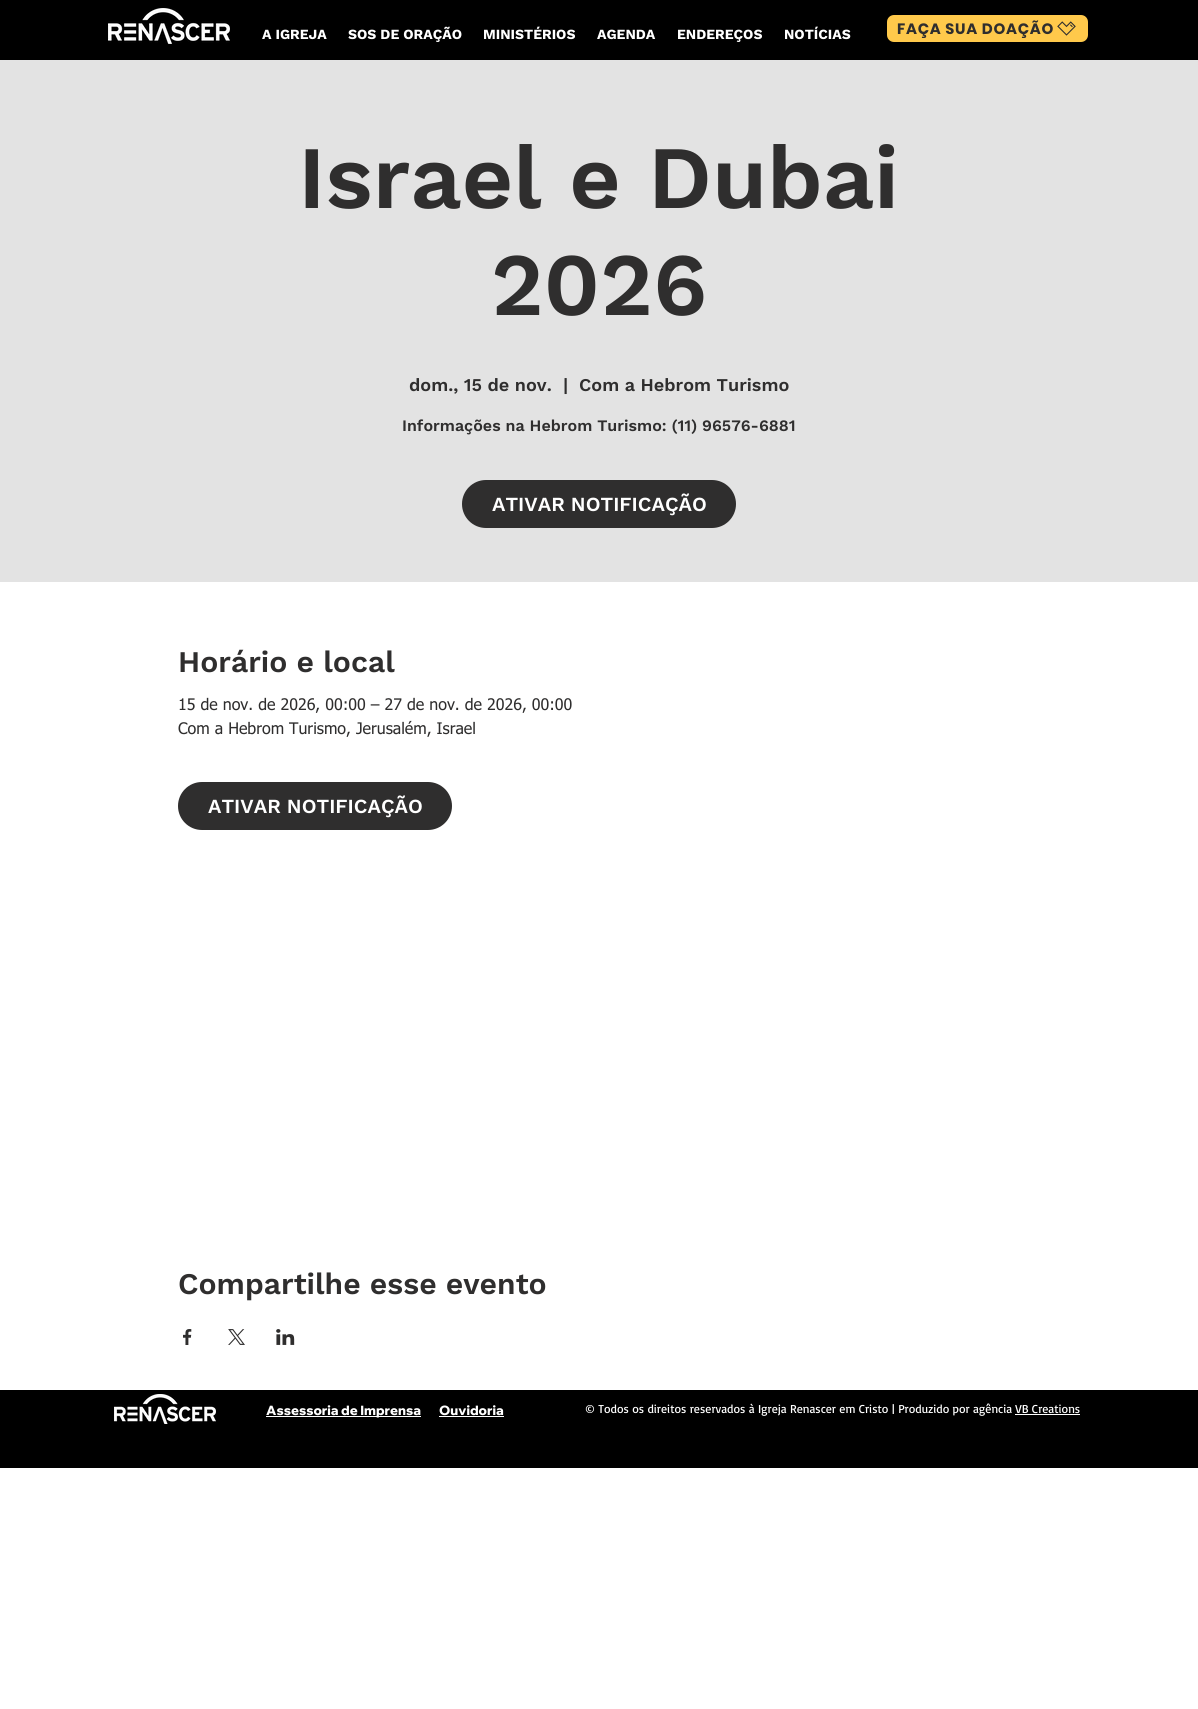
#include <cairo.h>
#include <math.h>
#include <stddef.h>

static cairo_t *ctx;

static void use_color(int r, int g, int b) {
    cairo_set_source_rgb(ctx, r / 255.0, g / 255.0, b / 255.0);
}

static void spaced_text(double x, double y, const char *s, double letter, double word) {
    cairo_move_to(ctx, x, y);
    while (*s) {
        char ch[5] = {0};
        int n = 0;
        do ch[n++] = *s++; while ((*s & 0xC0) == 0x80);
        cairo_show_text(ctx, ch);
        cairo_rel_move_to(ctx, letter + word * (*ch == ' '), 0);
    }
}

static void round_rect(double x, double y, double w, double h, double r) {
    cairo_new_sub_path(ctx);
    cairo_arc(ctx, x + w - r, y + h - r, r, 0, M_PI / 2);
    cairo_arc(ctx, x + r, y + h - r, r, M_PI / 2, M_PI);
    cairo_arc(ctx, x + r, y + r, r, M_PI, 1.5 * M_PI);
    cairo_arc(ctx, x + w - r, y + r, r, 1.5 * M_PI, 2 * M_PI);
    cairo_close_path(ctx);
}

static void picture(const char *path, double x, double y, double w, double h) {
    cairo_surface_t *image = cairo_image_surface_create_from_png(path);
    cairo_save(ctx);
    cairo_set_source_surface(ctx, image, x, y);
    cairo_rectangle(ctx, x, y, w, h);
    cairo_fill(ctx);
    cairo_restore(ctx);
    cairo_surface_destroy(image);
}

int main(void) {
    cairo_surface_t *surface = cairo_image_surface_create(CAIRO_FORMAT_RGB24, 1198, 1709);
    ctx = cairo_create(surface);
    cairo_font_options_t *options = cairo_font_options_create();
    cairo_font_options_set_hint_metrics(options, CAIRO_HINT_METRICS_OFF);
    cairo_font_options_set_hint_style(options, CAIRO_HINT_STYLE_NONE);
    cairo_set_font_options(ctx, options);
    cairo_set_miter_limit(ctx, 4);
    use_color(255, 255, 255);
    cairo_paint(ctx);
    use_color(0, 0, 0);
    cairo_rectangle(ctx, 0, 0, 1198, 60);
    cairo_fill(ctx);
    picture("img1.png", 108, 8, 122, 36);
    cairo_select_font_face(ctx, "Work Sans", CAIRO_FONT_SLANT_NORMAL, CAIRO_FONT_WEIGHT_BOLD);
    cairo_set_font_size(ctx, 14);
    use_color(255, 255, 255);
    cairo_move_to(ctx, 262, 39);
    cairo_show_text(ctx, "A IGREJA");
    cairo_move_to(ctx, 348, 39);
    cairo_show_text(ctx, "SOS DE ORAÇÃO");
    cairo_move_to(ctx, 483, 39);
    cairo_show_text(ctx, "MINISTÉRIOS");
    cairo_move_to(ctx, 597, 39);
    cairo_show_text(ctx, "AGENDA");
    cairo_move_to(ctx, 677, 39);
    cairo_show_text(ctx, "ENDEREÇOS");
    cairo_move_to(ctx, 784, 39);
    cairo_show_text(ctx, "NOTÍCIAS");
    use_color(255, 201, 75);
    round_rect(887, 15, 201, 27, 7);
    cairo_fill(ctx);
    cairo_select_font_face(ctx, "Poppins", CAIRO_FONT_SLANT_NORMAL, CAIRO_FONT_WEIGHT_BOLD);
    cairo_set_font_size(ctx, 15);
    use_color(47, 46, 46);
    spaced_text(897, 34, "FAÇA SUA DOAÇÃO", 0.75, 0);
    picture("img2.png", 1057, 21, 19, 15);
    use_color(227, 227, 227);
    cairo_rectangle(ctx, 0, 60, 1198, 522);
    cairo_fill(ctx);
    cairo_select_font_face(ctx, "Work Sans SemiBold", CAIRO_FONT_SLANT_NORMAL, CAIRO_FONT_WEIGHT_NORMAL);
    cairo_set_font_size(ctx, 89);
    use_color(47, 46, 46);
    cairo_move_to(ctx, 298, 208);
    cairo_show_text(ctx, "Israel e Dubai");
    cairo_move_to(ctx, 491, 315);
    cairo_show_text(ctx, "2026");
    cairo_set_font_size(ctx, 18);
    cairo_move_to(ctx, 409, 391);
    cairo_show_text(ctx, "dom., 15 de nov.");
    cairo_move_to(ctx, 563, 391);
    cairo_show_text(ctx, "|");
    cairo_move_to(ctx, 579, 391);
    cairo_show_text(ctx, "Com a Hebrom Turismo");
    cairo_set_font_size(ctx, 16);
    cairo_move_to(ctx, 402, 431);
    cairo_show_text(ctx, "Informações na Hebrom Turismo: (11) 96576-6881");
    round_rect(462, 480, 274, 48, 24);
    cairo_fill(ctx);
    cairo_set_font_size(ctx, 20);
    use_color(255, 255, 255);
    cairo_move_to(ctx, 492, 511);
    cairo_show_text(ctx, "ATIVAR NOTIFICAÇÃO");
    cairo_set_font_size(ctx, 30);
    use_color(47, 46, 46);
    cairo_move_to(ctx, 178, 672);
    cairo_show_text(ctx, "Horário e local");
    cairo_select_font_face(ctx, "tahoma", CAIRO_FONT_SLANT_NORMAL, CAIRO_FONT_WEIGHT_NORMAL);
    cairo_set_font_size(ctx, 16);
    cairo_move_to(ctx, 178, 710);
    cairo_show_text(ctx, "15 de nov. de 2026, 00:00 – 27 de nov. de 2026, 00:00");
    cairo_move_to(ctx, 178, 734);
    cairo_show_text(ctx, "Com a Hebrom Turismo, Jerusalém, Israel");
    round_rect(178, 782, 274, 48, 24);
    cairo_fill(ctx);
    cairo_select_font_face(ctx, "Work Sans SemiBold", CAIRO_FONT_SLANT_NORMAL, CAIRO_FONT_WEIGHT_NORMAL);
    cairo_set_font_size(ctx, 20);
    use_color(255, 255, 255);
    cairo_move_to(ctx, 208, 813);
    cairo_show_text(ctx, "ATIVAR NOTIFICAÇÃO");
    cairo_set_font_size(ctx, 30);
    use_color(47, 46, 46);
    cairo_move_to(ctx, 178, 1294);
    cairo_show_text(ctx, "Compartilhe esse evento");
    picture("img3.png", 183, 1329, 9, 16);
    picture("img4.png", 228, 1329, 17, 16);
    picture("img5.png", 276, 1329, 19, 16);
    use_color(0, 0, 0);
    cairo_rectangle(ctx, 0, 1390, 1198, 78);
    cairo_fill(ctx);
    picture("img6.png", 114, 1394, 102, 30);
    use_color(255, 255, 255);
    cairo_rectangle(ctx, 266, 1416, 155, 1);
    cairo_fill(ctx);
    cairo_select_font_face(ctx, "Wix Madefor Display ExtraBold", CAIRO_FONT_SLANT_NORMAL, CAIRO_FONT_WEIGHT_NORMAL);
    cairo_set_font_size(ctx, 13);
    cairo_move_to(ctx, 266, 1415);
    cairo_show_text(ctx, "Assessoria de Imprensa");
    cairo_move_to(ctx, 439, 1415);
    cairo_show_text(ctx, "Ouvidoria");
    cairo_rectangle(ctx, 439, 1416, 65, 1);
    cairo_fill(ctx);
    cairo_select_font_face(ctx, "Basic", CAIRO_FONT_SLANT_NORMAL, CAIRO_FONT_WEIGHT_NORMAL);
    cairo_set_font_size(ctx, 12);
    cairo_move_to(ctx, 585, 1413);
    cairo_show_text(ctx, "© Todos os direitos reservados à Igreja Renascer em Cristo | Produzido por agência VB Creations");
    cairo_rectangle(ctx, 1015, 1414, 65, 1);
    cairo_fill(ctx);
    cairo_surface_write_to_png(surface, "result.png");
    cairo_font_options_destroy(options);
    cairo_destroy(ctx);
    cairo_surface_destroy(surface);
    return 0;
}
